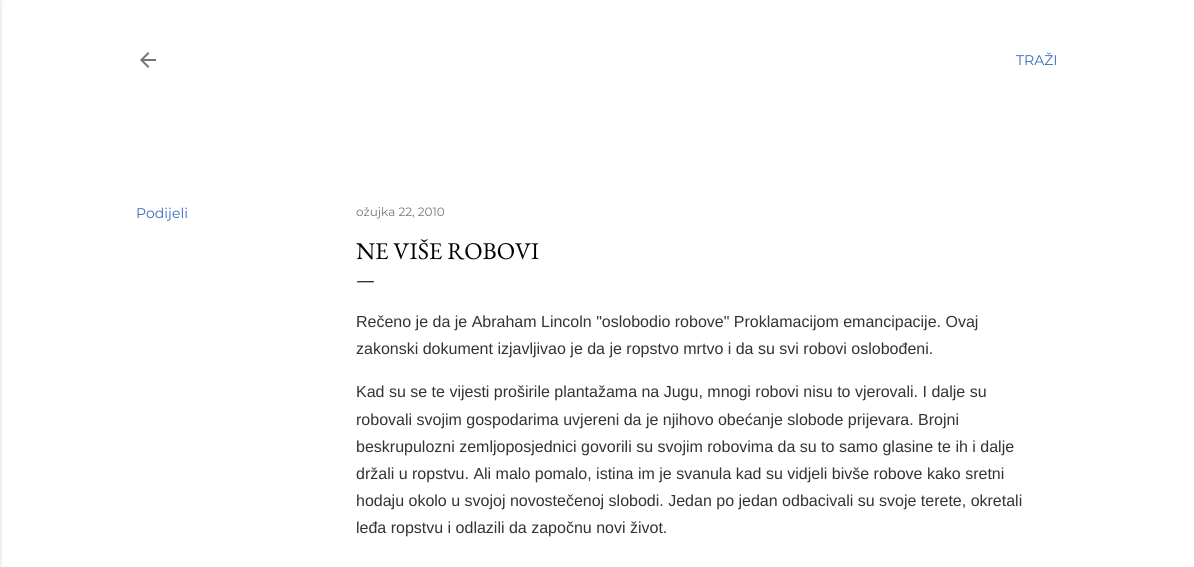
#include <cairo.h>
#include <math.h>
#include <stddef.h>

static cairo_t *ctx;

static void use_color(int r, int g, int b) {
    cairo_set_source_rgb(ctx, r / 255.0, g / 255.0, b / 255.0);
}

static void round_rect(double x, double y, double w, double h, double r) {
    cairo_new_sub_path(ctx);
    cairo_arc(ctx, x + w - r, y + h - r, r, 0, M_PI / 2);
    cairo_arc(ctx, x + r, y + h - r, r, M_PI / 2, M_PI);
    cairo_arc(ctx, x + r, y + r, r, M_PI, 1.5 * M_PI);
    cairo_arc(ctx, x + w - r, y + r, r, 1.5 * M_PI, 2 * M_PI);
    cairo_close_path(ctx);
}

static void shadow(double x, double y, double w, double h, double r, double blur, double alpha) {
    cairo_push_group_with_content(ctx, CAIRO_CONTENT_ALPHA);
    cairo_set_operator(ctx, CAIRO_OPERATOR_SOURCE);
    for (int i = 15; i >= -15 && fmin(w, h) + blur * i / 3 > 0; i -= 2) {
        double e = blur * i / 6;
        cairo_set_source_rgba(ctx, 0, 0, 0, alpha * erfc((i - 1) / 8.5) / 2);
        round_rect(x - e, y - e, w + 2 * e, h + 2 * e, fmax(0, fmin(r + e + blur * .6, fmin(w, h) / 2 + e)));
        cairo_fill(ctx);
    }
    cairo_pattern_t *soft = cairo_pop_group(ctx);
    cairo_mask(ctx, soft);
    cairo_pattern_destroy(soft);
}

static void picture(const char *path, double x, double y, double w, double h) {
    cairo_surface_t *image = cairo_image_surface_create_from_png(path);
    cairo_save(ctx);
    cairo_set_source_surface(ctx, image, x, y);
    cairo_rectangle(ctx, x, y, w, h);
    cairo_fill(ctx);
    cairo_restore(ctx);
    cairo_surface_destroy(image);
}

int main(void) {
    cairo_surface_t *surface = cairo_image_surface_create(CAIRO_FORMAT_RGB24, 1194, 567);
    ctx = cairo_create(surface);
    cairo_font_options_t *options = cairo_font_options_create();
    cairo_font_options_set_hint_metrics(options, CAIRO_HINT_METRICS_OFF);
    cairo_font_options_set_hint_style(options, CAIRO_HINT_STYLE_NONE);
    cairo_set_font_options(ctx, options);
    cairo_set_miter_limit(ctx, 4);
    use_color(255, 255, 255);
    cairo_paint(ctx);
    use_color(0, 0, 0);
    shadow(-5, 0, 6, 567, 0, 1.5, 0.1);
    picture("img1.png", 140, 52, 16, 16);
    cairo_select_font_face(ctx, "Montserrat", CAIRO_FONT_SLANT_NORMAL, CAIRO_FONT_WEIGHT_NORMAL);
    cairo_set_font_size(ctx, 14);
    use_color(55, 107, 190);
    cairo_move_to(ctx, 1016, 65);
    cairo_show_text(ctx, "TRAŽI");
    cairo_move_to(ctx, 136, 218);
    cairo_show_text(ctx, "Podijeli");
    cairo_set_font_size(ctx, 12);
    use_color(117, 117, 117);
    cairo_move_to(ctx, 356, 216);
    cairo_show_text(ctx, "ožujka 22, 2010");
    cairo_select_font_face(ctx, "EB Garamond", CAIRO_FONT_SLANT_NORMAL, CAIRO_FONT_WEIGHT_NORMAL);
    cairo_set_font_size(ctx, 24);
    use_color(0, 0, 0);
    cairo_move_to(ctx, 356, 259);
    cairo_show_text(ctx, "NE VIŠE ROBOVI");
    cairo_set_font_size(ctx, 20);
    cairo_move_to(ctx, 356, 286);
    cairo_show_text(ctx, "—");
    cairo_select_font_face(ctx, "Liberation Sans", CAIRO_FONT_SLANT_NORMAL, CAIRO_FONT_WEIGHT_NORMAL);
    cairo_set_font_size(ctx, 16);
    use_color(51, 51, 51);
    cairo_move_to(ctx, 356, 327);
    cairo_show_text(ctx, "Rečeno je da je Abraham Lincoln \"oslobodio robove\" Proklamacijom emancipacije. Ovaj");
    cairo_move_to(ctx, 356, 354);
    cairo_show_text(ctx, "zakonski dokument izjavljivao je da je ropstvo mrtvo i da su svi robovi oslobođeni.");
    cairo_move_to(ctx, 356, 397);
    cairo_show_text(ctx, "Kad su se te vijesti proširile plantažama na Jugu, mnogi robovi nisu to vjerovali. I dalje su");
    cairo_move_to(ctx, 356, 425);
    cairo_show_text(ctx, "robovali svojim gospodarima uvjereni da je njihovo obećanje slobode prijevara. Brojni");
    cairo_move_to(ctx, 356, 452);
    cairo_show_text(ctx, "beskrupulozni zemljoposjednici govorili su svojim robovima da su to samo glasine te ih i dalje");
    cairo_move_to(ctx, 356, 479);
    cairo_show_text(ctx, "držali u ropstvu. Ali malo pomalo, istina im je svanula kad su vidjeli bivše robove kako sretni");
    cairo_move_to(ctx, 356, 506);
    cairo_show_text(ctx, "hodaju okolo u svojoj novostečenoj slobodi. Jedan po jedan odbacivali su svoje terete, okretali");
    cairo_move_to(ctx, 356, 533);
    cairo_show_text(ctx, "leđa ropstvu i odlazili da započnu novi život.");
    cairo_surface_write_to_png(surface, "result.png");
    cairo_font_options_destroy(options);
    cairo_destroy(ctx);
    cairo_surface_destroy(surface);
    return 0;
}
